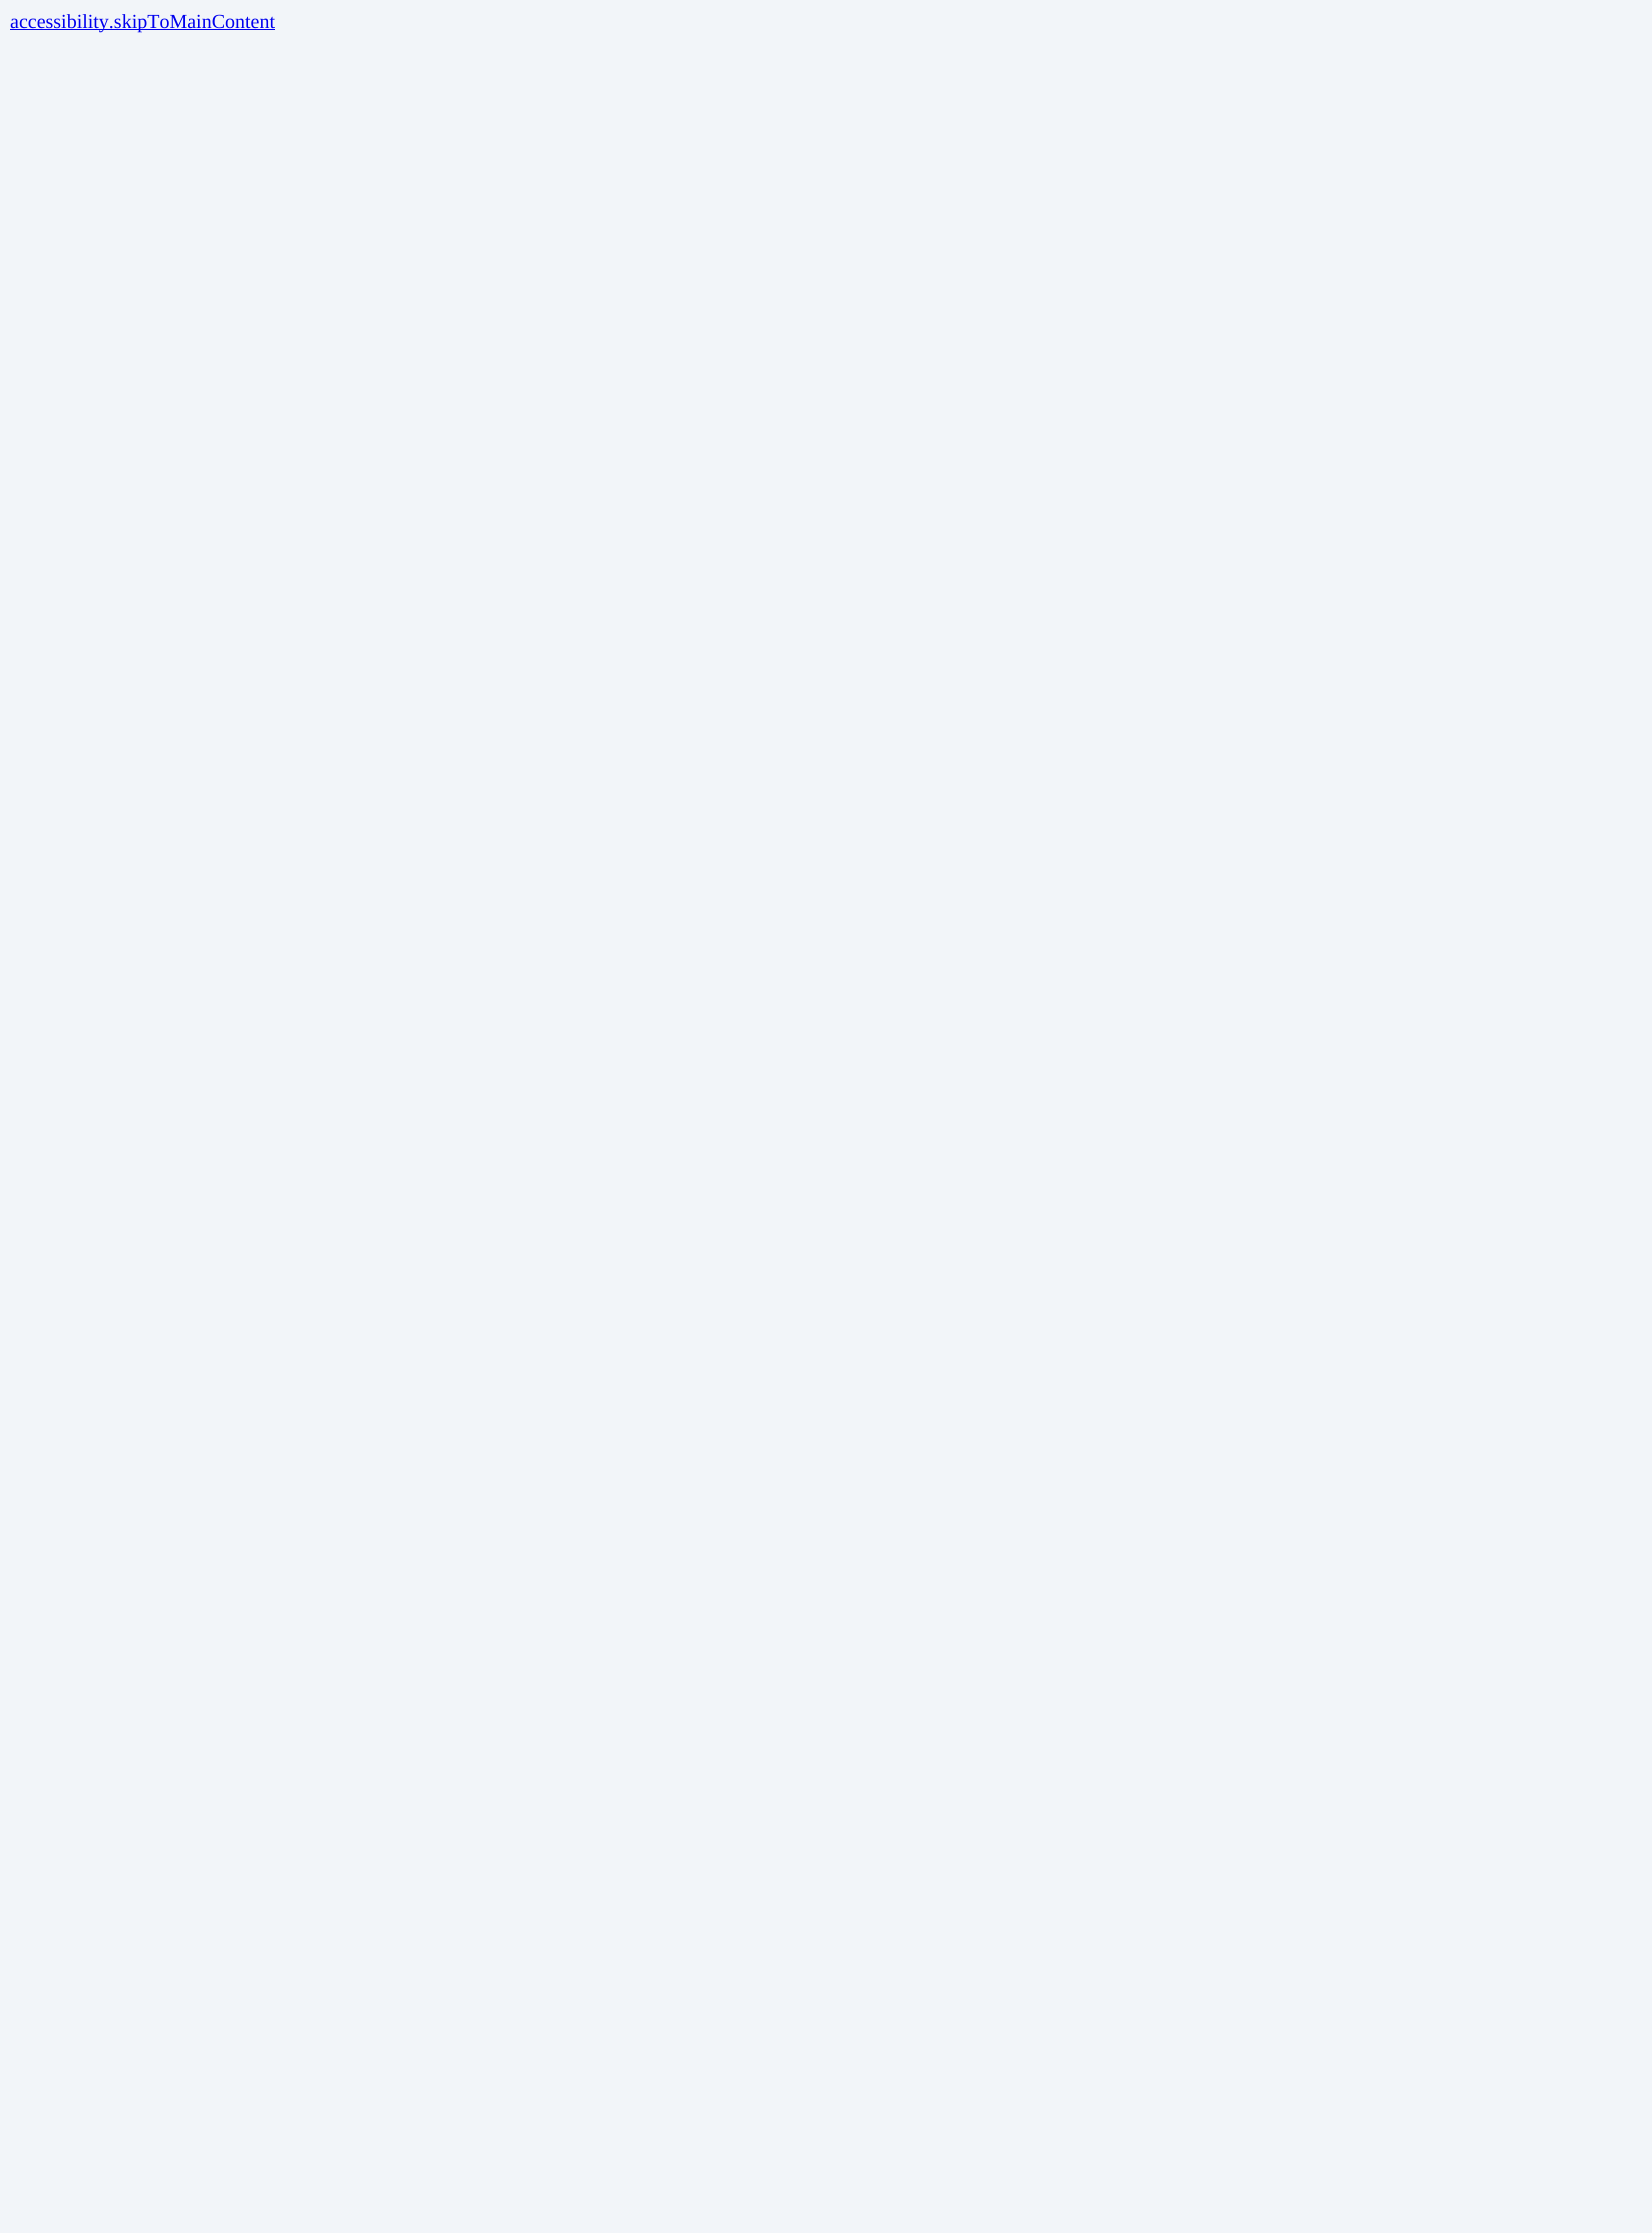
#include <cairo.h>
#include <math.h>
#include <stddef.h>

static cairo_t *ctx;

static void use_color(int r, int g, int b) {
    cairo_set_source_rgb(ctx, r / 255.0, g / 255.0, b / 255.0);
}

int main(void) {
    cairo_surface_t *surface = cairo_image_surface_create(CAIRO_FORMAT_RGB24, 1652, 2233);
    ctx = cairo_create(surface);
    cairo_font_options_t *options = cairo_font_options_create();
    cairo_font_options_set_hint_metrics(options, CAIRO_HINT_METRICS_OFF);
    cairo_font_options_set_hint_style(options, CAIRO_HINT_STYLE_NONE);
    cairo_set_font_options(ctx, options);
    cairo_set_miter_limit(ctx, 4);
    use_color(242, 245, 249);
    cairo_paint(ctx);
    use_color(0, 0, 238);
    cairo_rectangle(ctx, 10, 29, 265, 1);
    cairo_fill(ctx);
    cairo_select_font_face(ctx, "Liberation Serif", CAIRO_FONT_SLANT_NORMAL, CAIRO_FONT_WEIGHT_NORMAL);
    cairo_set_font_size(ctx, 20);
    cairo_move_to(ctx, 10, 28);
    cairo_show_text(ctx, "accessibility.skipToMainContent");
    cairo_surface_write_to_png(surface, "result.png");
    cairo_font_options_destroy(options);
    cairo_destroy(ctx);
    cairo_surface_destroy(surface);
    return 0;
}
